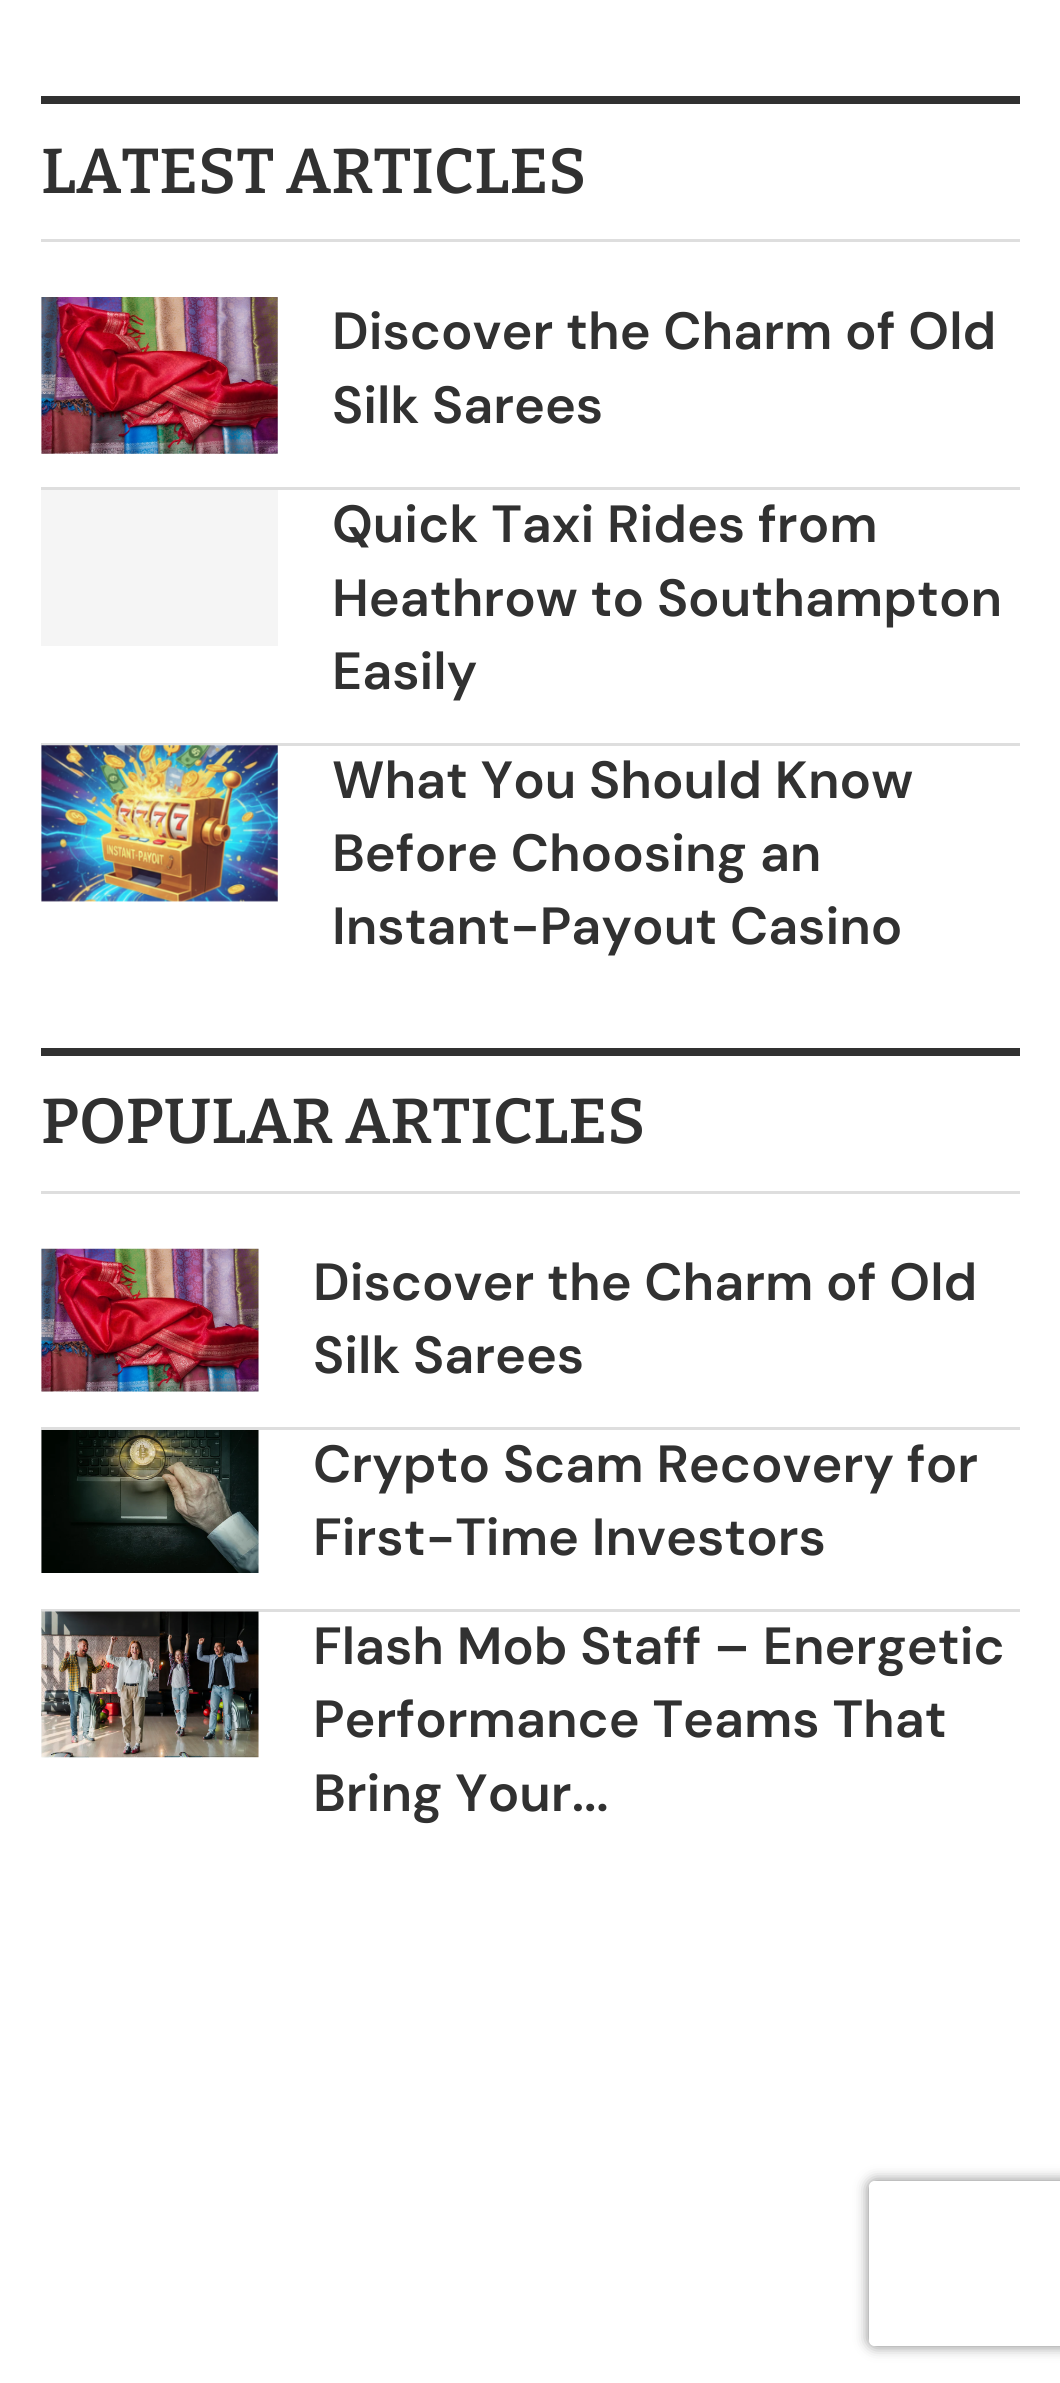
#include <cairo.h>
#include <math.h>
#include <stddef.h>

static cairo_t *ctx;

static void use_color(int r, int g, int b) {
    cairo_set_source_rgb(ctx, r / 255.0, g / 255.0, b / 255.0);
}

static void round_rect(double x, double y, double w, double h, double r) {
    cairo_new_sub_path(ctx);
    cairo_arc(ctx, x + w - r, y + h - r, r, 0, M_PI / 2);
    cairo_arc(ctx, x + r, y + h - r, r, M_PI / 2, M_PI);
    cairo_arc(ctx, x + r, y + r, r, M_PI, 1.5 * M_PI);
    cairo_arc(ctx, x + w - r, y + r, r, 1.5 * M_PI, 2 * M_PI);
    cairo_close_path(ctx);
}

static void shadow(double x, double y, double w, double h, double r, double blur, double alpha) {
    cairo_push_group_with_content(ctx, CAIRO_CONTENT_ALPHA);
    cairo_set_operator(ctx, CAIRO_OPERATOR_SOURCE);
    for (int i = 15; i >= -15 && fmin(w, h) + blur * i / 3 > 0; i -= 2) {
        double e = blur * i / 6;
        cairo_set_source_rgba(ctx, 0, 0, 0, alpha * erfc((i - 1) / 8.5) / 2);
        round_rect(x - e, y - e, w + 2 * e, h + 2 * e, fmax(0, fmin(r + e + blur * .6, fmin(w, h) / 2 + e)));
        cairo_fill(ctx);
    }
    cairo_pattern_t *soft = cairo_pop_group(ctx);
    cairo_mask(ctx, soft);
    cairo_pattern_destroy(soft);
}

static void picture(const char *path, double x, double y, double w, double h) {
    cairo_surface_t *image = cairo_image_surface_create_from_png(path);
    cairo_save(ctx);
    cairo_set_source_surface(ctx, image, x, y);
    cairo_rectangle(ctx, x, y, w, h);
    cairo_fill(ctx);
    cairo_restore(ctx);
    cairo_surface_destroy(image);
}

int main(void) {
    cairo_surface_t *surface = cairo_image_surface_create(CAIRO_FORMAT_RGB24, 1060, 2383);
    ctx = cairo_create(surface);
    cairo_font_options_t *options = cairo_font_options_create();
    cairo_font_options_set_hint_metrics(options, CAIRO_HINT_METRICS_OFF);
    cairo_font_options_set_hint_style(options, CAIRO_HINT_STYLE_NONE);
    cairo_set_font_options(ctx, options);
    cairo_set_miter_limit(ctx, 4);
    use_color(255, 255, 255);
    cairo_paint(ctx);
    use_color(49, 49, 49);
    cairo_rectangle(ctx, 41, 96, 979, 8);
    cairo_fill(ctx);
    use_color(222, 222, 222);
    cairo_rectangle(ctx, 41, 239, 979, 3);
    cairo_fill(ctx);
    cairo_select_font_face(ctx, "Bitter SemiBold", CAIRO_FONT_SLANT_NORMAL, CAIRO_FONT_WEIGHT_NORMAL);
    cairo_set_font_size(ctx, 63.25);
    use_color(49, 49, 49);
    cairo_move_to(ctx, 41, 193);
    cairo_show_text(ctx, "LATEST ARTICLES");
    use_color(222, 222, 222);
    cairo_rectangle(ctx, 41, 487, 979, 3);
    cairo_fill(ctx);
    use_color(245, 245, 245);
    cairo_rectangle(ctx, 41, 297, 237, 157);
    cairo_fill(ctx);
    picture("img1.png", 41, 297, 237, 157);
    cairo_select_font_face(ctx, "DM Sans SemiBold", CAIRO_FONT_SLANT_NORMAL, CAIRO_FONT_WEIGHT_NORMAL);
    cairo_set_font_size(ctx, 52.25);
    use_color(49, 49, 49);
    cairo_move_to(ctx, 332, 349);
    cairo_show_text(ctx, "Discover the Charm of Old");
    cairo_move_to(ctx, 332, 423);
    cairo_show_text(ctx, "Silk Sarees");
    use_color(222, 222, 222);
    cairo_rectangle(ctx, 41, 743, 979, 3);
    cairo_fill(ctx);
    use_color(245, 245, 245);
    cairo_rectangle(ctx, 41, 490, 237, 156);
    cairo_fill(ctx);
    use_color(49, 49, 49);
    cairo_move_to(ctx, 332, 542);
    cairo_show_text(ctx, "Quick Taxi Rides from");
    cairo_move_to(ctx, 332, 616);
    cairo_show_text(ctx, "Heathrow to Southampton");
    cairo_move_to(ctx, 332, 689);
    cairo_show_text(ctx, "Easily");
    use_color(245, 245, 245);
    cairo_rectangle(ctx, 41, 745, 237, 157);
    cairo_fill(ctx);
    picture("img2.png", 41, 745, 237, 157);
    use_color(49, 49, 49);
    cairo_move_to(ctx, 332, 798);
    cairo_show_text(ctx, "What You Should Know");
    cairo_move_to(ctx, 332, 871);
    cairo_show_text(ctx, "Before Choosing an");
    cairo_move_to(ctx, 332, 944);
    cairo_show_text(ctx, "Instant-Payout Casino");
    cairo_rectangle(ctx, 41, 1048, 979, 8);
    cairo_fill(ctx);
    use_color(222, 222, 222);
    cairo_rectangle(ctx, 41, 1191, 979, 3);
    cairo_fill(ctx);
    cairo_select_font_face(ctx, "Bitter SemiBold", CAIRO_FONT_SLANT_NORMAL, CAIRO_FONT_WEIGHT_NORMAL);
    cairo_set_font_size(ctx, 63.25);
    use_color(49, 49, 49);
    cairo_move_to(ctx, 41, 1143);
    cairo_show_text(ctx, "POPULAR ARTICLES");
    use_color(222, 222, 222);
    cairo_rectangle(ctx, 41, 1427, 979, 3);
    cairo_fill(ctx);
    use_color(245, 245, 245);
    cairo_rectangle(ctx, 41, 1249, 218, 143);
    cairo_fill(ctx);
    picture("img3.png", 41, 1248, 218, 144);
    cairo_select_font_face(ctx, "DM Sans SemiBold", CAIRO_FONT_SLANT_NORMAL, CAIRO_FONT_WEIGHT_NORMAL);
    cairo_set_font_size(ctx, 52.25);
    use_color(49, 49, 49);
    cairo_move_to(ctx, 313, 1300);
    cairo_show_text(ctx, "Discover the Charm of Old");
    cairo_move_to(ctx, 313, 1373);
    cairo_show_text(ctx, "Silk Sarees");
    use_color(222, 222, 222);
    cairo_rectangle(ctx, 41, 1609, 979, 3);
    cairo_fill(ctx);
    use_color(245, 245, 245);
    cairo_rectangle(ctx, 41, 1430, 218, 143);
    cairo_fill(ctx);
    picture("img4.png", 41, 1430, 218, 143);
    use_color(49, 49, 49);
    cairo_move_to(ctx, 313, 1482);
    cairo_show_text(ctx, "Crypto Scam Recovery for");
    cairo_move_to(ctx, 313, 1555);
    cairo_show_text(ctx, "First-Time Investors");
    use_color(245, 245, 245);
    cairo_rectangle(ctx, 41, 1612, 218, 145);
    cairo_fill(ctx);
    picture("img5.png", 41, 1611, 218, 147);
    use_color(49, 49, 49);
    cairo_move_to(ctx, 313, 1664);
    cairo_show_text(ctx, "Flash Mob Staff – Energetic");
    cairo_move_to(ctx, 313, 1737);
    cairo_show_text(ctx, "Performance Teams That");
    cairo_move_to(ctx, 313, 1811);
    cairo_show_text(ctx, "Bring Your...");
    cairo_save(ctx);
    cairo_set_fill_rule(ctx, CAIRO_FILL_RULE_EVEN_ODD);
    cairo_new_path(ctx);
    cairo_move_to(ctx, 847, 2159);
    cairo_line_to(ctx, 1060, 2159);
    cairo_line_to(ctx, 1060, 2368);
    cairo_line_to(ctx, 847, 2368);
    cairo_close_path(ctx);
    cairo_move_to(ctx, 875, 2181);
    cairo_line_to(ctx, 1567, 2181);
    cairo_curve_to(ctx, 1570.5, 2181, 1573, 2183.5, 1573, 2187);
    cairo_line_to(ctx, 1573, 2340);
    cairo_curve_to(ctx, 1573, 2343.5, 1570.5, 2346, 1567, 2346);
    cairo_line_to(ctx, 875, 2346);
    cairo_curve_to(ctx, 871.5, 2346, 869, 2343.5, 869, 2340);
    cairo_line_to(ctx, 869, 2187);
    cairo_curve_to(ctx, 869, 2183.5, 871.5, 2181, 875, 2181);
    cairo_close_path(ctx);
    cairo_clip(ctx);
    use_color(128, 128, 128);
    shadow(869, 2181, 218, 165, 6, 7, 1);
    cairo_restore(ctx);
    cairo_surface_write_to_png(surface, "result.png");
    cairo_font_options_destroy(options);
    cairo_destroy(ctx);
    cairo_surface_destroy(surface);
    return 0;
}
